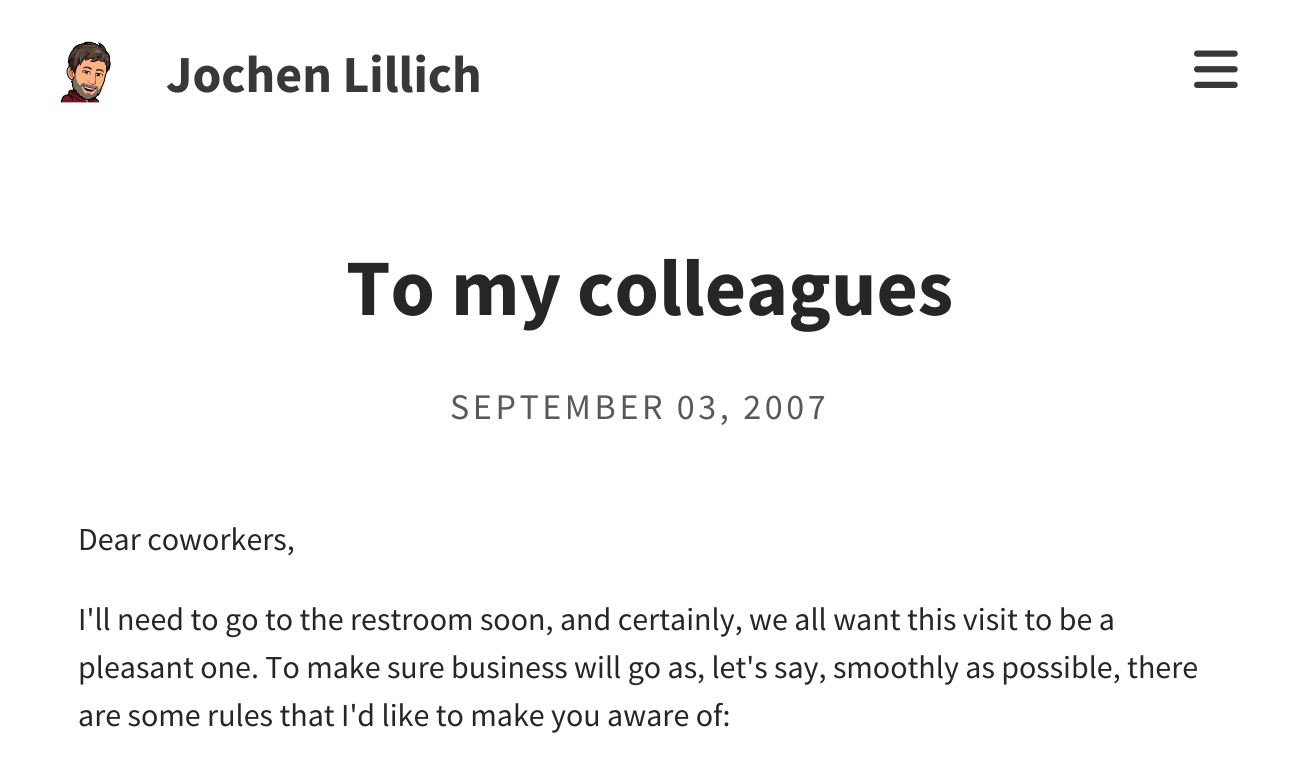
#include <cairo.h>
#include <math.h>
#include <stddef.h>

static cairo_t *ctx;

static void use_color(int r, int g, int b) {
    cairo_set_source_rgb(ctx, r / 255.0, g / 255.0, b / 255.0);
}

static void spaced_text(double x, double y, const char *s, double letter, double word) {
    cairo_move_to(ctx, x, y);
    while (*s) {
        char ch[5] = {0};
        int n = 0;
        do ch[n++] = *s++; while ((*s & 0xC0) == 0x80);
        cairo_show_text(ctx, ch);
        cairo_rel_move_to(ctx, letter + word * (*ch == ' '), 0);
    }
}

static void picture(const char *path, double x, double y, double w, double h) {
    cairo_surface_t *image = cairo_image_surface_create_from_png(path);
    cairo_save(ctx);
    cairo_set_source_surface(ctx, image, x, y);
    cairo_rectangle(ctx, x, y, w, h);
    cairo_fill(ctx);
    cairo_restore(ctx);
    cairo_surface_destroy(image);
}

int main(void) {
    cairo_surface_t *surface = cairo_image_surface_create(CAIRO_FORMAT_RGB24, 1300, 761);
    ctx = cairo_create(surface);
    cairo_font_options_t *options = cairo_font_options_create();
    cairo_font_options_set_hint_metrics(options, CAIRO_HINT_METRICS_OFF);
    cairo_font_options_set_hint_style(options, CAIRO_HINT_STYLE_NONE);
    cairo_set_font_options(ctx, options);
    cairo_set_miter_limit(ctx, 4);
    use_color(255, 255, 255);
    cairo_paint(ctx);
    picture("img1.png", 60, 41, 51, 62);
    cairo_select_font_face(ctx, "Source Sans Pro", CAIRO_FONT_SLANT_NORMAL, CAIRO_FONT_WEIGHT_BOLD);
    cairo_set_font_size(ctx, 52);
    use_color(56, 56, 56);
    cairo_move_to(ctx, 166, 92);
    cairo_show_text(ctx, "Jochen Lillich");
    picture("img2.png", 1194, 50, 44, 38);
    cairo_set_font_size(ctx, 80);
    use_color(38, 38, 38);
    cairo_move_to(ctx, 346, 315);
    cairo_show_text(ctx, "To my colleagues");
    cairo_select_font_face(ctx, "Source Sans Pro", CAIRO_FONT_SLANT_NORMAL, CAIRO_FONT_WEIGHT_NORMAL);
    cairo_set_font_size(ctx, 36);
    use_color(89, 89, 89);
    spaced_text(450, 419, "SEPTEMBER 03, 2007", 3.6, 0);
    cairo_set_font_size(ctx, 32);
    use_color(38, 38, 38);
    cairo_move_to(ctx, 78, 550);
    cairo_show_text(ctx, "Dear coworkers,");
    cairo_move_to(ctx, 78, 630);
    cairo_show_text(ctx, "I'll need to go to the restroom soon, and certainly, we all want this visit to be a");
    cairo_move_to(ctx, 78, 678);
    cairo_show_text(ctx, "pleasant one. To make sure business will go as, let's say, smoothly as possible, there");
    cairo_move_to(ctx, 78, 726);
    cairo_show_text(ctx, "are some rules that I'd like to make you aware of:");
    cairo_surface_write_to_png(surface, "result.png");
    cairo_font_options_destroy(options);
    cairo_destroy(ctx);
    cairo_surface_destroy(surface);
    return 0;
}
